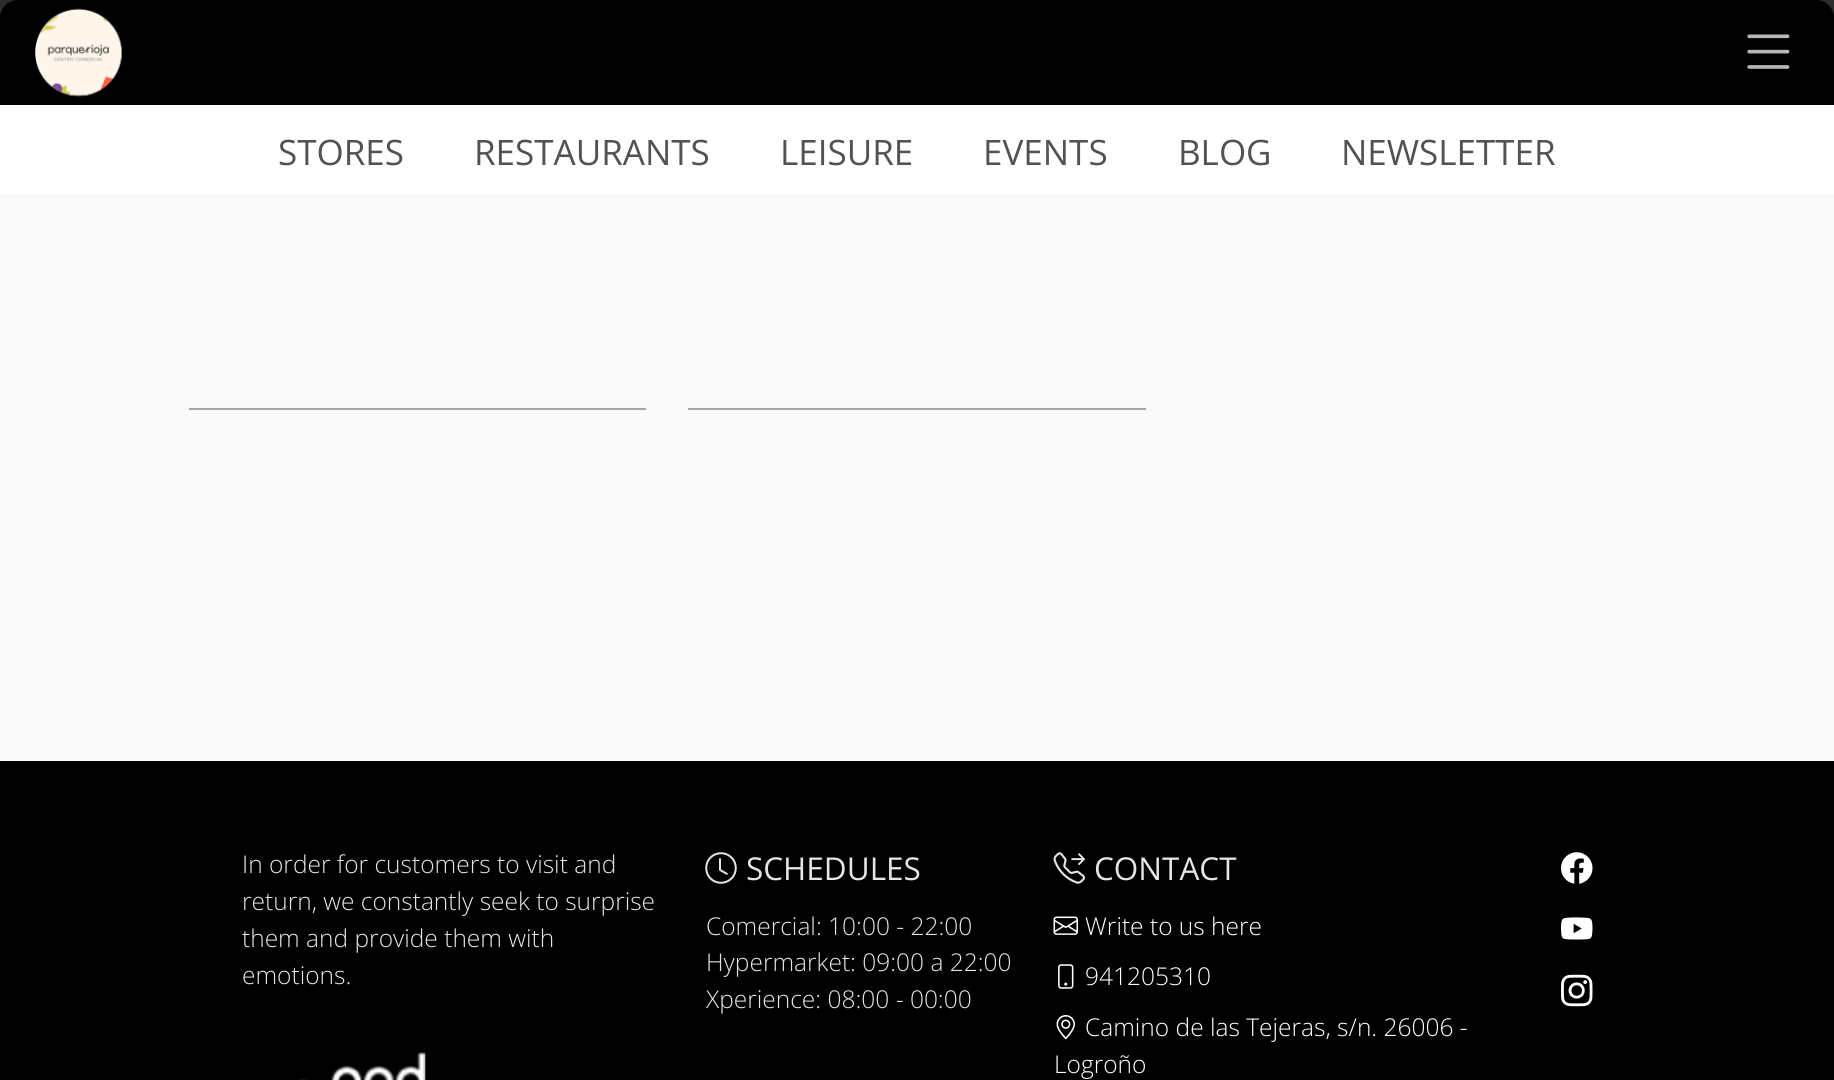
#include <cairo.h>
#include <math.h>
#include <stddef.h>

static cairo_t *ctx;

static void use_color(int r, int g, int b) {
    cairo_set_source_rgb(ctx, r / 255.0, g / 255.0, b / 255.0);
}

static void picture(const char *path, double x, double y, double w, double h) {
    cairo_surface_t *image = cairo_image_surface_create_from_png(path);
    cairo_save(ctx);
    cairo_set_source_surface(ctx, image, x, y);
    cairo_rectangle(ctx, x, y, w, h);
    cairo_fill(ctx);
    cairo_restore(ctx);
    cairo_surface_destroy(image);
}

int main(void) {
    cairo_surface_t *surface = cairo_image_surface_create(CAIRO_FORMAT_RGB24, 1834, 1080);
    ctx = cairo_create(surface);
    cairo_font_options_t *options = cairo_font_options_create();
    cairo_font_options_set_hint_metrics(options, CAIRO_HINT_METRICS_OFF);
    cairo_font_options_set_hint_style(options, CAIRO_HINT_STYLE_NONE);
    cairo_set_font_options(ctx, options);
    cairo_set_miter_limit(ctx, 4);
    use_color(0, 0, 0);
    cairo_paint(ctx);
    use_color(44, 44, 44);
    cairo_rectangle(ctx, 0, 0, 1834, 18);
    cairo_fill(ctx);
    use_color(0, 0, 0);
    cairo_new_path(ctx);
    cairo_move_to(ctx, 18, 0);
    cairo_line_to(ctx, 1816, 0);
    cairo_curve_to(ctx, 1826, 0, 1834, 8, 1834, 18);
    cairo_line_to(ctx, 1834, 193);
    cairo_line_to(ctx, 0, 193);
    cairo_line_to(ctx, 0, 18);
    cairo_curve_to(ctx, 0, 8, 8, 0, 18, 0);
    cairo_close_path(ctx);
    cairo_fill(ctx);
    picture("img1.png", 35, 8, 87, 89);
    picture("img2.png", 1747, 34, 43, 35);
    use_color(255, 255, 255);
    cairo_rectangle(ctx, 0, 105, 1834, 88);
    cairo_fill(ctx);
    cairo_select_font_face(ctx, "Open Sans", CAIRO_FONT_SLANT_NORMAL, CAIRO_FONT_WEIGHT_NORMAL);
    cairo_set_font_size(ctx, 35);
    use_color(82, 82, 82);
    cairo_move_to(ctx, 278, 165);
    cairo_show_text(ctx, "STORES");
    cairo_move_to(ctx, 474, 165);
    cairo_show_text(ctx, "RESTAURANTS");
    cairo_move_to(ctx, 780, 165);
    cairo_show_text(ctx, "LEISURE");
    cairo_move_to(ctx, 983, 165);
    cairo_show_text(ctx, "EVENTS");
    cairo_move_to(ctx, 1178, 165);
    cairo_show_text(ctx, "BLOG");
    cairo_move_to(ctx, 1341, 165);
    cairo_show_text(ctx, "NEWSLETTER");
    use_color(250, 250, 250);
    cairo_rectangle(ctx, 0, 193, 1834, 568);
    cairo_fill(ctx);
    use_color(165, 165, 165);
    cairo_rectangle(ctx, 189, 408, 457, 2);
    cairo_fill(ctx);
    cairo_rectangle(ctx, 688, 408, 458, 2);
    cairo_fill(ctx);
    cairo_select_font_face(ctx, "Open Sans Light", CAIRO_FONT_SLANT_NORMAL, CAIRO_FONT_WEIGHT_NORMAL);
    cairo_set_font_size(ctx, 24.5);
    use_color(229, 229, 229);
    cairo_move_to(ctx, 242, 873);
    cairo_show_text(ctx, "In order for customers to visit and");
    cairo_move_to(ctx, 242, 910);
    cairo_show_text(ctx, "return, we constantly seek to surprise");
    cairo_move_to(ctx, 242, 947);
    cairo_show_text(ctx, "them and provide them with");
    cairo_move_to(ctx, 242, 984);
    cairo_show_text(ctx, "emotions.");
    picture("img3.png", 300, 1052, 126, 28);
    picture("img4.png", 705, 852, 32, 32);
    cairo_select_font_face(ctx, "Open Sans", CAIRO_FONT_SLANT_NORMAL, CAIRO_FONT_WEIGHT_NORMAL);
    cairo_set_font_size(ctx, 31.5);
    cairo_move_to(ctx, 746, 880);
    cairo_show_text(ctx, "SCHEDULES");
    cairo_select_font_face(ctx, "Open Sans Light", CAIRO_FONT_SLANT_NORMAL, CAIRO_FONT_WEIGHT_NORMAL);
    cairo_set_font_size(ctx, 24.5);
    cairo_move_to(ctx, 706, 935);
    cairo_show_text(ctx, "Comercial: 10:00 - 22:00");
    cairo_move_to(ctx, 706, 971);
    cairo_show_text(ctx, "Hypermarket: 09:00 a 22:00");
    cairo_move_to(ctx, 706, 1008);
    cairo_show_text(ctx, "Xperience: 08:00 - 00:00");
    picture("img5.png", 1053, 852, 32, 32);
    cairo_select_font_face(ctx, "Open Sans", CAIRO_FONT_SLANT_NORMAL, CAIRO_FONT_WEIGHT_NORMAL);
    cairo_set_font_size(ctx, 31.5);
    cairo_move_to(ctx, 1094, 880);
    cairo_show_text(ctx, "CONTACT");
    picture("img6.png", 1053, 916, 25, 19);
    cairo_select_font_face(ctx, "Open Sans Light", CAIRO_FONT_SLANT_NORMAL, CAIRO_FONT_WEIGHT_NORMAL);
    cairo_set_font_size(ctx, 24.5);
    use_color(255, 255, 255);
    cairo_move_to(ctx, 1085, 935);
    cairo_show_text(ctx, "Write to us here");
    picture("img7.png", 1058, 964, 16, 25);
    cairo_move_to(ctx, 1085, 985);
    cairo_show_text(ctx, "941205310");
    picture("img8.png", 1056, 1015, 19, 25);
    cairo_move_to(ctx, 1085, 1036);
    cairo_show_text(ctx, "Camino de las Tejeras, s/n. 26006 -");
    cairo_move_to(ctx, 1054, 1073);
    cairo_show_text(ctx, "Logroño");
    picture("img9.png", 1561, 852, 32, 32);
    picture("img10.png", 1561, 917, 32, 23);
    picture("img11.png", 1561, 974, 32, 33);
    cairo_surface_write_to_png(surface, "result.png");
    cairo_font_options_destroy(options);
    cairo_destroy(ctx);
    cairo_surface_destroy(surface);
    return 0;
}
